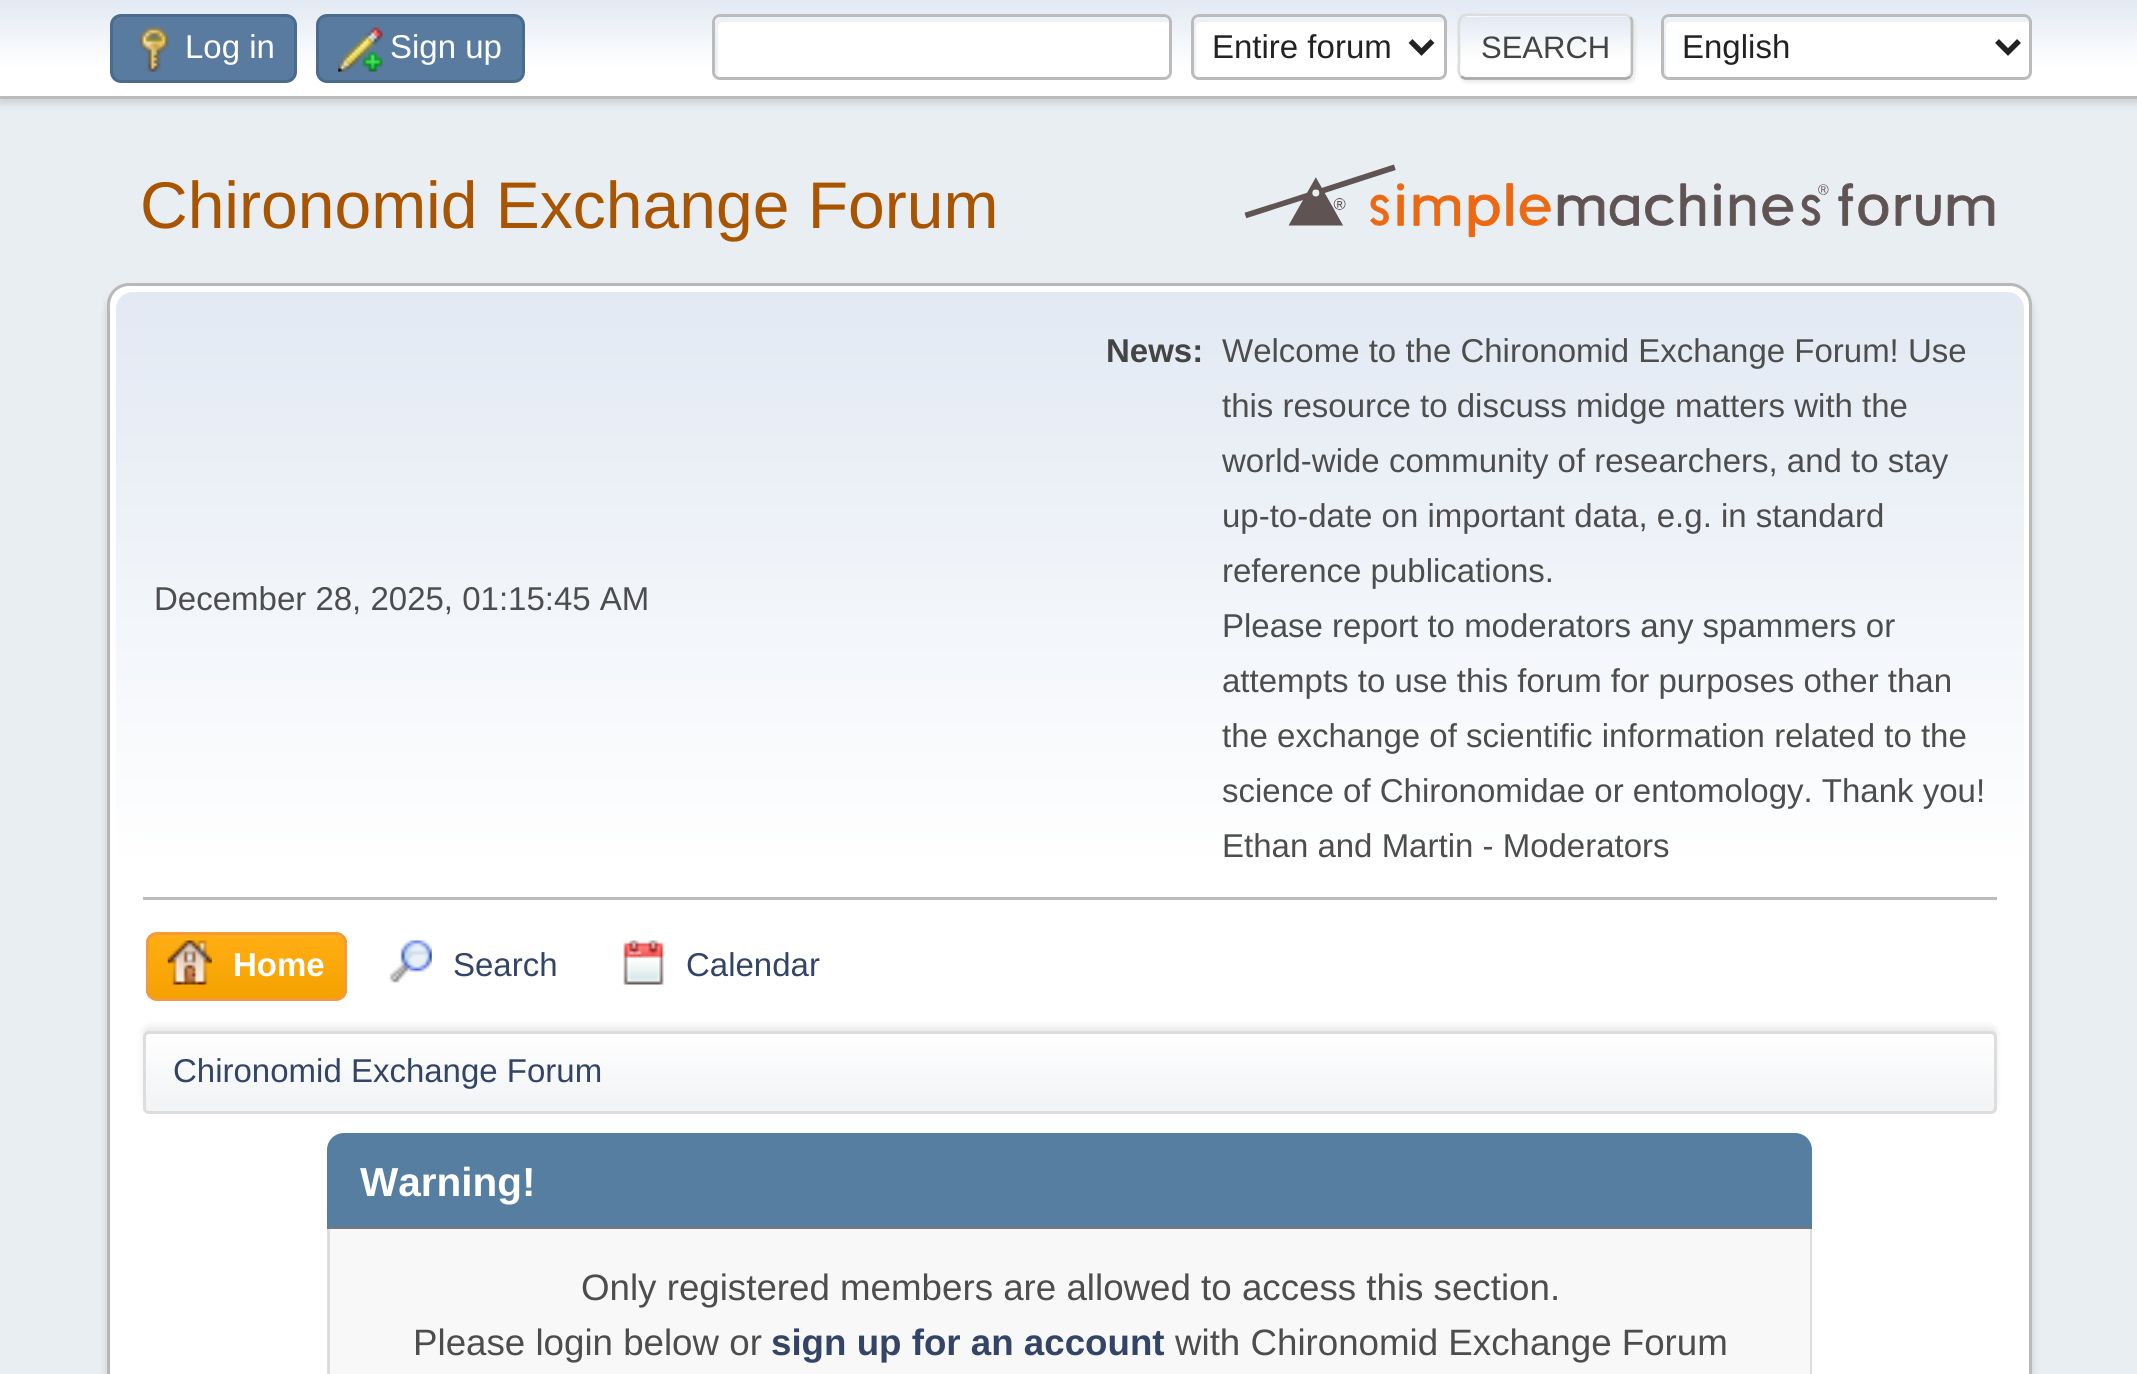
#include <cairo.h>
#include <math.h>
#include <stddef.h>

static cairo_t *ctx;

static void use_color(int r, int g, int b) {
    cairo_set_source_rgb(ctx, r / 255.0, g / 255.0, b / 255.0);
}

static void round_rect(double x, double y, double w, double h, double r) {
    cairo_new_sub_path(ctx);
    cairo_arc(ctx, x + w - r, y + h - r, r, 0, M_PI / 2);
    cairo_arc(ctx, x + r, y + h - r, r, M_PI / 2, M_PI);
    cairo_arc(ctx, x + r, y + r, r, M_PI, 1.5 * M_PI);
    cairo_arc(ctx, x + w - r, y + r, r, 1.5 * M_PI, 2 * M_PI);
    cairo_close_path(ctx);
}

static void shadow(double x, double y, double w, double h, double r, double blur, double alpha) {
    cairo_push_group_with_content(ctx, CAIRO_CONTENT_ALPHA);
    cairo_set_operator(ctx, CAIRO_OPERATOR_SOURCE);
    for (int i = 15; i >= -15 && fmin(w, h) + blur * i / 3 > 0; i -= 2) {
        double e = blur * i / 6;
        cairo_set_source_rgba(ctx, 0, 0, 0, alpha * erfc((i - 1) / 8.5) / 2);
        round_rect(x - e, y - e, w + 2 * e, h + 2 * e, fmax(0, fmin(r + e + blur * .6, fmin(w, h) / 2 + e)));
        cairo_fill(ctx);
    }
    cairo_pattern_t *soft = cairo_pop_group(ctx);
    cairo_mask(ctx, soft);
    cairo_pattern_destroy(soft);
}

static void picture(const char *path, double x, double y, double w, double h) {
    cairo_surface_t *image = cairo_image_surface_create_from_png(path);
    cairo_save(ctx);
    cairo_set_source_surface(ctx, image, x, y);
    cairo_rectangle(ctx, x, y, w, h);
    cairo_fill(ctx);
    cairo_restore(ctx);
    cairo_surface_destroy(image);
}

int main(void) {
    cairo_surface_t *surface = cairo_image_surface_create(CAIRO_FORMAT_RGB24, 2137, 1374);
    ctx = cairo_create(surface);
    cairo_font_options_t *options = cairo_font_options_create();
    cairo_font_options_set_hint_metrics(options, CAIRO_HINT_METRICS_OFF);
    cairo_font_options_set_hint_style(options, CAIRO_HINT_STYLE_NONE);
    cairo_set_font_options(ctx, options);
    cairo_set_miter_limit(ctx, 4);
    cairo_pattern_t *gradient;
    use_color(233, 238, 242);
    cairo_paint(ctx);
    use_color(0, 0, 0);
    shadow(0, 3, 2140, 99, 0, 5.5, 0.16);
    gradient = cairo_pattern_create_linear(1070, 0, 1070, 96);
    cairo_pattern_add_color_stop_rgba(gradient, 0, 0.886, 0.914, 0.953, 1);
    cairo_pattern_add_color_stop_rgba(gradient, 0.7, 1, 1, 1, 1);
    cairo_set_source(ctx, gradient);
    cairo_pattern_destroy(gradient);
    cairo_rectangle(ctx, 0, 0, 2137, 96);
    cairo_fill(ctx);
    use_color(187, 187, 187);
    cairo_rectangle(ctx, 0, 96, 2137, 3);
    cairo_fill(ctx);
    use_color(89, 123, 159);
    round_rect(111.5, 15.5, 184, 66, 9.5);
    cairo_fill_preserve(ctx);
    use_color(74, 107, 140);
    cairo_set_line_width(ctx, 3);
    cairo_stroke(ctx);
    picture("img1.png", 139, 27, 30, 45);
    cairo_select_font_face(ctx, "Liberation Sans", CAIRO_FONT_SLANT_NORMAL, CAIRO_FONT_WEIGHT_NORMAL);
    cairo_set_font_size(ctx, 33);
    use_color(255, 255, 255);
    cairo_move_to(ctx, 185, 58);
    cairo_show_text(ctx, "Log in");
    use_color(89, 123, 159);
    round_rect(317.5, 15.5, 206, 66, 9.5);
    cairo_fill_preserve(ctx);
    use_color(74, 107, 140);
    cairo_stroke(ctx);
    picture("img2.png", 338, 27, 45, 45);
    use_color(255, 255, 255);
    cairo_move_to(ctx, 390, 58);
    cairo_show_text(ctx, "Sign up");
    round_rect(712, 14, 460, 66, 8);
    cairo_fill(ctx);
    use_color(236, 241, 248);
    cairo_new_path(ctx);
    cairo_move_to(ctx, 723, 22);
    cairo_line_to(ctx, 1166, 22);
    cairo_line_to(ctx, 1169, 23);
    cairo_curve_to(ctx, 1169, 20, 1166, 17, 1163, 17);
    cairo_line_to(ctx, 721, 17);
    cairo_curve_to(ctx, 718, 17, 715, 20, 715, 23);
    cairo_line_to(ctx, 715, 71);
    cairo_curve_to(ctx, 715, 73, 716, 75, 718, 76);
    cairo_line_to(ctx, 718, 28);
    cairo_curve_to(ctx, 718, 24, 720, 22, 723, 22);
    cairo_close_path(ctx);
    cairo_fill(ctx);
    round_rect(713.5, 15.5, 457, 63, 6.5);
    use_color(187, 187, 187);
    cairo_stroke(ctx);
    use_color(255, 255, 255);
    round_rect(1191, 14, 256, 66, 8);
    cairo_fill(ctx);
    use_color(236, 241, 248);
    cairo_new_path(ctx);
    cairo_move_to(ctx, 1202, 22);
    cairo_line_to(ctx, 1441, 22);
    cairo_line_to(ctx, 1444, 23);
    cairo_curve_to(ctx, 1444, 20, 1441, 17, 1438, 17);
    cairo_line_to(ctx, 1200, 17);
    cairo_curve_to(ctx, 1197, 17, 1194, 20, 1194, 23);
    cairo_line_to(ctx, 1194, 71);
    cairo_curve_to(ctx, 1194, 73, 1195, 74, 1196, 75);
    cairo_line_to(ctx, 1196, 28);
    cairo_curve_to(ctx, 1196, 24, 1199, 22, 1202, 22);
    cairo_close_path(ctx);
    cairo_fill(ctx);
    round_rect(1192.5, 15.5, 253, 63, 6.5);
    use_color(187, 187, 187);
    cairo_stroke(ctx);
    cairo_new_path(ctx);
    cairo_move_to(ctx, 1410.5, 41);
    cairo_line_to(ctx, 1421.5, 52);
    cairo_line_to(ctx, 1432.5, 41);
    use_color(34, 34, 34);
    cairo_set_line_width(ctx, 5.5);
    cairo_stroke(ctx);
    cairo_move_to(ctx, 1212, 58);
    cairo_show_text(ctx, "Entire forum");
    use_color(221, 221, 221);
    shadow(1460, 17, 176, 66, 8, 1.5, 0.57);
    cairo_save(ctx);
    round_rect(1458, 14, 176, 66, 8);
    cairo_clip(ctx);
    gradient = cairo_pattern_create_linear(1546, -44, 1546, 17);
    cairo_pattern_add_color_stop_rgba(gradient, 0, 0.886, 0.914, 0.953, 1);
    cairo_pattern_add_color_stop_rgba(gradient, 0.7, 1, 1, 1, 1);
    cairo_set_source(ctx, gradient);
    cairo_pattern_destroy(gradient);
    cairo_rectangle(ctx, 1458, 14, 176, 3);
    cairo_fill(ctx);
    gradient = cairo_pattern_create_linear(1546, 16, 1546, 77);
    cairo_pattern_add_color_stop_rgba(gradient, 0, 0.886, 0.914, 0.953, 1);
    cairo_pattern_add_color_stop_rgba(gradient, 0.7, 1, 1, 1, 1);
    cairo_set_source(ctx, gradient);
    cairo_pattern_destroy(gradient);
    cairo_rectangle(ctx, 1458, 17, 176, 60);
    cairo_fill(ctx);
    gradient = cairo_pattern_create_linear(1546, 77, 1546, 138);
    cairo_pattern_add_color_stop_rgba(gradient, 0, 0.886, 0.914, 0.953, 1);
    cairo_pattern_add_color_stop_rgba(gradient, 0.7, 1, 1, 1, 1);
    cairo_set_source(ctx, gradient);
    cairo_pattern_destroy(gradient);
    cairo_rectangle(ctx, 1458, 77, 176, 3);
    cairo_fill(ctx);
    cairo_restore(ctx);
    cairo_new_path(ctx);
    cairo_move_to(ctx, 1630, 17);
    cairo_curve_to(ctx, 1631.5, 18.5, 1632, 20, 1632, 22);
    cairo_line_to(ctx, 1632, 71.5);
    cairo_curve_to(ctx, 1632, 73.5, 1631.5, 75, 1630, 76.5);
    use_color(187, 187, 187);
    cairo_set_line_width(ctx, 2.8);
    cairo_stroke(ctx);
    cairo_new_path(ctx);
    cairo_move_to(ctx, 1630, 76.5);
    cairo_curve_to(ctx, 1629, 77.5, 1627.5, 78, 1626, 78.5);
    cairo_line_to(ctx, 1465, 78.5);
    cairo_line_to(ctx, 1461, 76.5);
    use_color(170, 170, 170);
    cairo_stroke(ctx);
    cairo_new_path(ctx);
    cairo_move_to(ctx, 1461, 76.5);
    cairo_curve_to(ctx, 1457.5, 73, 1459, 67, 1459, 63);
    cairo_line_to(ctx, 1459, 47);
    cairo_curve_to(ctx, 1459, 9.5, 1453.5, 15, 1492.5, 15);
    cairo_line_to(ctx, 1625, 15);
    cairo_curve_to(ctx, 1627, 15, 1629, 16, 1630, 17);
    use_color(221, 221, 221);
    cairo_stroke(ctx);
    cairo_set_font_size(ctx, 31);
    use_color(68, 68, 68);
    cairo_move_to(ctx, 1481, 58);
    cairo_show_text(ctx, "SEARCH");
    use_color(255, 255, 255);
    round_rect(1661, 14, 371, 66, 8);
    cairo_fill(ctx);
    use_color(236, 241, 248);
    cairo_new_path(ctx);
    cairo_move_to(ctx, 1672, 22);
    cairo_line_to(ctx, 2027, 22);
    cairo_line_to(ctx, 2030, 23);
    cairo_curve_to(ctx, 2030, 20, 2027, 17, 2024, 17);
    cairo_line_to(ctx, 1670, 17);
    cairo_curve_to(ctx, 1667, 17, 1664, 20, 1664, 23);
    cairo_line_to(ctx, 1664, 71);
    cairo_curve_to(ctx, 1664, 73, 1665, 74, 1666, 75);
    cairo_line_to(ctx, 1666, 28);
    cairo_curve_to(ctx, 1666, 24, 1669, 22, 1672, 22);
    cairo_close_path(ctx);
    cairo_fill(ctx);
    round_rect(1662.5, 15.5, 368, 63, 6.5);
    use_color(187, 187, 187);
    cairo_set_line_width(ctx, 3);
    cairo_stroke(ctx);
    cairo_new_path(ctx);
    cairo_move_to(ctx, 1997, 41);
    cairo_line_to(ctx, 2008, 52);
    cairo_line_to(ctx, 2019, 41);
    use_color(34, 34, 34);
    cairo_set_line_width(ctx, 5.5);
    cairo_stroke(ctx);
    cairo_set_font_size(ctx, 33);
    cairo_move_to(ctx, 1682, 58);
    cairo_show_text(ctx, "English");
    cairo_set_font_size(ctx, 66);
    use_color(168, 84, 0);
    cairo_move_to(ctx, 140, 228);
    cairo_show_text(ctx, "Chironomid Exchange Forum");
    picture("img3.png", 1244, 164, 751, 74);
    use_color(0, 0, 0);
    shadow(107, 289, 1925, 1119, 22, 4, 0.14);
    use_color(255, 255, 255);
    round_rect(108.5, 284.5, 1922, 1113, 20.5);
    cairo_fill_preserve(ctx);
    use_color(184, 184, 184);
    cairo_set_line_width(ctx, 3);
    cairo_stroke(ctx);
    gradient = cairo_pattern_create_linear(1070, 291, 1070, 1119);
    cairo_pattern_add_color_stop_rgba(gradient, 0, 0.886, 0.914, 0.953, 1);
    cairo_pattern_add_color_stop_rgba(gradient, 0.7, 1, 1, 1, 1);
    cairo_set_source(ctx, gradient);
    cairo_pattern_destroy(gradient);
    cairo_new_path(ctx);
    cairo_move_to(ctx, 133, 292);
    cairo_line_to(ctx, 2007, 292);
    cairo_curve_to(ctx, 2016.5, 292, 2024, 299.5, 2024, 309);
    cairo_line_to(ctx, 2024, 1119);
    cairo_line_to(ctx, 116, 1119);
    cairo_line_to(ctx, 116, 309);
    cairo_curve_to(ctx, 116, 299.5, 123.5, 292, 133, 292);
    cairo_close_path(ctx);
    cairo_fill(ctx);
    use_color(187, 187, 187);
    cairo_rectangle(ctx, 143, 897, 1854, 3);
    cairo_fill(ctx);
    cairo_set_font_size(ctx, 33);
    use_color(77, 77, 77);
    cairo_move_to(ctx, 154, 610);
    cairo_show_text(ctx, "December 28, 2025, 01:15:45 AM");
    cairo_select_font_face(ctx, "Liberation Sans", CAIRO_FONT_SLANT_NORMAL, CAIRO_FONT_WEIGHT_BOLD);
    use_color(68, 68, 68);
    cairo_move_to(ctx, 1106, 362);
    cairo_show_text(ctx, "News:");
    cairo_select_font_face(ctx, "Liberation Sans", CAIRO_FONT_SLANT_NORMAL, CAIRO_FONT_WEIGHT_NORMAL);
    use_color(77, 77, 77);
    cairo_move_to(ctx, 1222, 362);
    cairo_show_text(ctx, "Welcome to the Chironomid Exchange Forum! Use");
    cairo_move_to(ctx, 1222, 417);
    cairo_show_text(ctx, "this resource to discuss midge matters with the");
    cairo_move_to(ctx, 1222, 472);
    cairo_show_text(ctx, "world-wide community of researchers, and to stay");
    cairo_move_to(ctx, 1222, 527);
    cairo_show_text(ctx, "up-to-date on important data, e.g. in standard");
    cairo_move_to(ctx, 1222, 582);
    cairo_show_text(ctx, "reference publications.");
    cairo_move_to(ctx, 1222, 637);
    cairo_show_text(ctx, "Please report to moderators any spammers or");
    cairo_move_to(ctx, 1222, 692);
    cairo_show_text(ctx, "attempts to use this forum for purposes other than");
    cairo_move_to(ctx, 1222, 747);
    cairo_show_text(ctx, "the exchange of scientific information related to the");
    cairo_move_to(ctx, 1222, 802);
    cairo_show_text(ctx, "science of Chironomidae or entomology. Thank you!");
    cairo_move_to(ctx, 1222, 857);
    cairo_show_text(ctx, "Ethan and Martin - Moderators");
    cairo_save(ctx);
    round_rect(146, 932, 201, 69, 11);
    cairo_clip(ctx);
    gradient = cairo_pattern_create_linear(246, 935, 246, 998);
    cairo_pattern_add_color_stop_rgba(gradient, 0, 1, 0.682, 0.078, 1);
    cairo_pattern_add_color_stop_rgba(gradient, 1, 0.961, 0.631, 0, 1);
    cairo_set_source(ctx, gradient);
    cairo_pattern_destroy(gradient);
    cairo_rectangle(ctx, 146, 935, 201, 63);
    cairo_fill(ctx);
    cairo_restore(ctx);
    round_rect(147.5, 933.5, 198, 66, 9.5);
    use_color(244, 154, 58);
    cairo_stroke(ctx);
    picture("img4.png", 167, 940, 45, 45);
    cairo_select_font_face(ctx, "Liberation Sans", CAIRO_FONT_SLANT_NORMAL, CAIRO_FONT_WEIGHT_BOLD);
    use_color(255, 255, 255);
    cairo_move_to(ctx, 233, 976);
    cairo_show_text(ctx, "Home");
    picture("img5.png", 389, 940, 43, 43);
    cairo_select_font_face(ctx, "Liberation Sans", CAIRO_FONT_SLANT_NORMAL, CAIRO_FONT_WEIGHT_NORMAL);
    use_color(51, 68, 102);
    cairo_move_to(ctx, 453, 976);
    cairo_show_text(ctx, "Search");
    picture("img6.png", 623, 940, 41, 45);
    cairo_move_to(ctx, 686, 976);
    cairo_show_text(ctx, "Calendar");
    use_color(0, 0, 0);
    shadow(143, 1026, 1854, 82, 6, 3, 0.08);
    cairo_save(ctx);
    round_rect(143, 1031, 1854, 83, 6);
    cairo_clip(ctx);
    gradient = cairo_pattern_create_linear(1070, 1034, 1070, 1111);
    cairo_pattern_add_color_stop_rgba(gradient, 0, 1, 1, 1, 1);
    cairo_pattern_add_color_stop_rgba(gradient, 0.95, 0.945, 0.953, 0.961, 1);
    cairo_set_source(ctx, gradient);
    cairo_pattern_destroy(gradient);
    cairo_rectangle(ctx, 143, 1034, 1854, 77);
    cairo_fill(ctx);
    cairo_restore(ctx);
    round_rect(144.5, 1032.5, 1851, 80, 4.5);
    use_color(221, 221, 221);
    cairo_stroke(ctx);
    use_color(51, 68, 102);
    cairo_move_to(ctx, 173, 1082);
    cairo_show_text(ctx, "Chironomid Exchange Forum");
    use_color(85, 126, 160);
    cairo_new_path(ctx);
    cairo_move_to(ctx, 344, 1133);
    cairo_line_to(ctx, 1795, 1133);
    cairo_curve_to(ctx, 1804.5, 1133, 1812, 1140.5, 1812, 1150);
    cairo_line_to(ctx, 1812, 1229);
    cairo_line_to(ctx, 327, 1229);
    cairo_line_to(ctx, 327, 1150);
    cairo_curve_to(ctx, 327, 1140.5, 334.5, 1133, 344, 1133);
    cairo_close_path(ctx);
    cairo_fill(ctx);
    use_color(119, 119, 119);
    cairo_rectangle(ctx, 327, 1227, 1485, 2);
    cairo_fill(ctx);
    cairo_select_font_face(ctx, "Liberation Sans", CAIRO_FONT_SLANT_NORMAL, CAIRO_FONT_WEIGHT_BOLD);
    cairo_set_font_size(ctx, 40.5);
    use_color(255, 255, 255);
    cairo_move_to(ctx, 360, 1196);
    cairo_show_text(ctx, "Warning!");
    use_color(248, 248, 248);
    cairo_rectangle(ctx, 330, 1229, 1480, 145);
    cairo_fill(ctx);
    use_color(221, 221, 221);
    cairo_set_fill_rule(ctx, CAIRO_FILL_RULE_EVEN_ODD);
    cairo_new_path(ctx);
    cairo_move_to(ctx, 327, 1229);
    cairo_line_to(ctx, 1812, 1229);
    cairo_line_to(ctx, 1812, 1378);
    cairo_curve_to(ctx, 1812, 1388, 1804, 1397, 1793, 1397);
    cairo_line_to(ctx, 346, 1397);
    cairo_curve_to(ctx, 336, 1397, 327, 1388, 327, 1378);
    cairo_close_path(ctx);
    cairo_move_to(ctx, 330, 1229);
    cairo_line_to(ctx, 1810, 1229);
    cairo_line_to(ctx, 1810, 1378);
    cairo_curve_to(ctx, 1810, 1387, 1802, 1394, 1793, 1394);
    cairo_line_to(ctx, 346, 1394);
    cairo_curve_to(ctx, 337, 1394, 330, 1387, 330, 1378);
    cairo_close_path(ctx);
    cairo_fill(ctx);
    cairo_select_font_face(ctx, "Liberation Sans", CAIRO_FONT_SLANT_NORMAL, CAIRO_FONT_WEIGHT_NORMAL);
    cairo_set_font_size(ctx, 36.7);
    use_color(77, 77, 77);
    cairo_move_to(ctx, 581, 1300);
    cairo_show_text(ctx, "Only registered members are allowed to access this section.");
    cairo_move_to(ctx, 413, 1355);
    cairo_show_text(ctx, "Please login below or");
    cairo_select_font_face(ctx, "Liberation Sans", CAIRO_FONT_SLANT_NORMAL, CAIRO_FONT_WEIGHT_BOLD);
    use_color(51, 68, 102);
    cairo_move_to(ctx, 771, 1355);
    cairo_show_text(ctx, "sign up for an account");
    cairo_select_font_face(ctx, "Liberation Sans", CAIRO_FONT_SLANT_NORMAL, CAIRO_FONT_WEIGHT_NORMAL);
    use_color(77, 77, 77);
    cairo_move_to(ctx, 1175, 1355);
    cairo_show_text(ctx, "with Chironomid Exchange Forum");
    cairo_surface_write_to_png(surface, "result.png");
    cairo_font_options_destroy(options);
    cairo_destroy(ctx);
    cairo_surface_destroy(surface);
    return 0;
}
